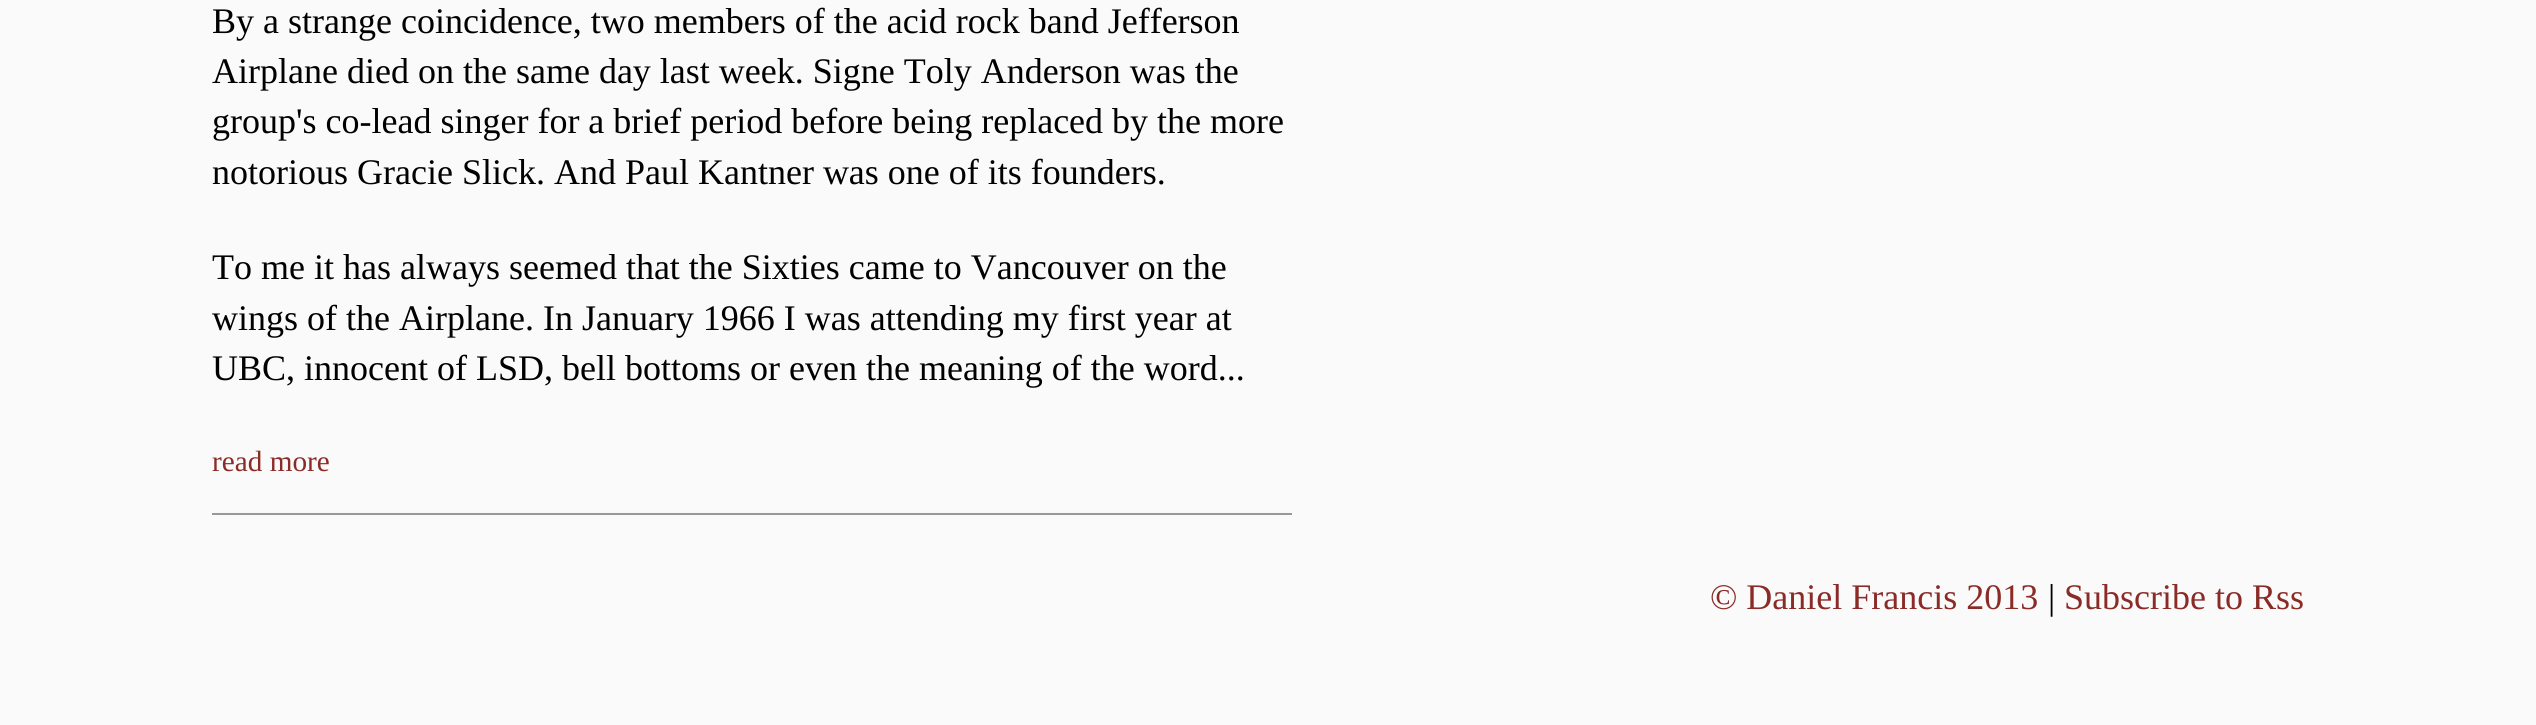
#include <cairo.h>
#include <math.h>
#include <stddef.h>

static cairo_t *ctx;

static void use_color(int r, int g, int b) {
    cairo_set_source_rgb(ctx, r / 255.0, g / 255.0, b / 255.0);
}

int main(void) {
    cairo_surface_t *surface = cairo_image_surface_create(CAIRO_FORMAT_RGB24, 2536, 725);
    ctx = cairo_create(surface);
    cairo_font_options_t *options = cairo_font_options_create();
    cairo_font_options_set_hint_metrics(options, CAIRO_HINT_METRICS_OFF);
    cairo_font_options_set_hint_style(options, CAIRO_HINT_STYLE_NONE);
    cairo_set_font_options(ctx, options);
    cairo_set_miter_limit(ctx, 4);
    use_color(250, 250, 250);
    cairo_paint(ctx);
    use_color(153, 153, 153);
    cairo_rectangle(ctx, 212, 513, 1080, 2);
    cairo_fill(ctx);
    cairo_select_font_face(ctx, "Liberation Serif", CAIRO_FONT_SLANT_NORMAL, CAIRO_FONT_WEIGHT_NORMAL);
    cairo_set_font_size(ctx, 36);
    use_color(0, 0, 0);
    cairo_move_to(ctx, 212, 33);
    cairo_show_text(ctx, "By a strange coincidence, two members of the acid rock band Jefferson");
    cairo_move_to(ctx, 212, 83);
    cairo_show_text(ctx, "Airplane died on the same day last week. Signe Toly Anderson was the");
    cairo_move_to(ctx, 212, 133);
    cairo_show_text(ctx, "group's co-lead singer for a brief period before being replaced by the more");
    cairo_move_to(ctx, 212, 184);
    cairo_show_text(ctx, "notorious Gracie Slick. And Paul Kantner was one of its founders.");
    cairo_move_to(ctx, 212, 279);
    cairo_show_text(ctx, "To me it has always seemed that the Sixties came to Vancouver on the");
    cairo_move_to(ctx, 212, 330);
    cairo_show_text(ctx, "wings of the Airplane. In January 1966 I was attending my first year at");
    cairo_move_to(ctx, 212, 380);
    cairo_show_text(ctx, "UBC, innocent of LSD, bell bottoms or even the meaning of the word...");
    cairo_set_font_size(ctx, 29.25);
    use_color(138, 43, 39);
    cairo_move_to(ctx, 212, 471);
    cairo_show_text(ctx, "read more");
    cairo_set_font_size(ctx, 36);
    cairo_move_to(ctx, 1710, 609);
    cairo_show_text(ctx, "© Daniel Francis 2013");
    use_color(0, 0, 0);
    cairo_move_to(ctx, 2048, 609);
    cairo_show_text(ctx, "|");
    use_color(138, 43, 39);
    cairo_move_to(ctx, 2064, 609);
    cairo_show_text(ctx, "Subscribe to Rss");
    cairo_surface_write_to_png(surface, "result.png");
    cairo_font_options_destroy(options);
    cairo_destroy(ctx);
    cairo_surface_destroy(surface);
    return 0;
}
